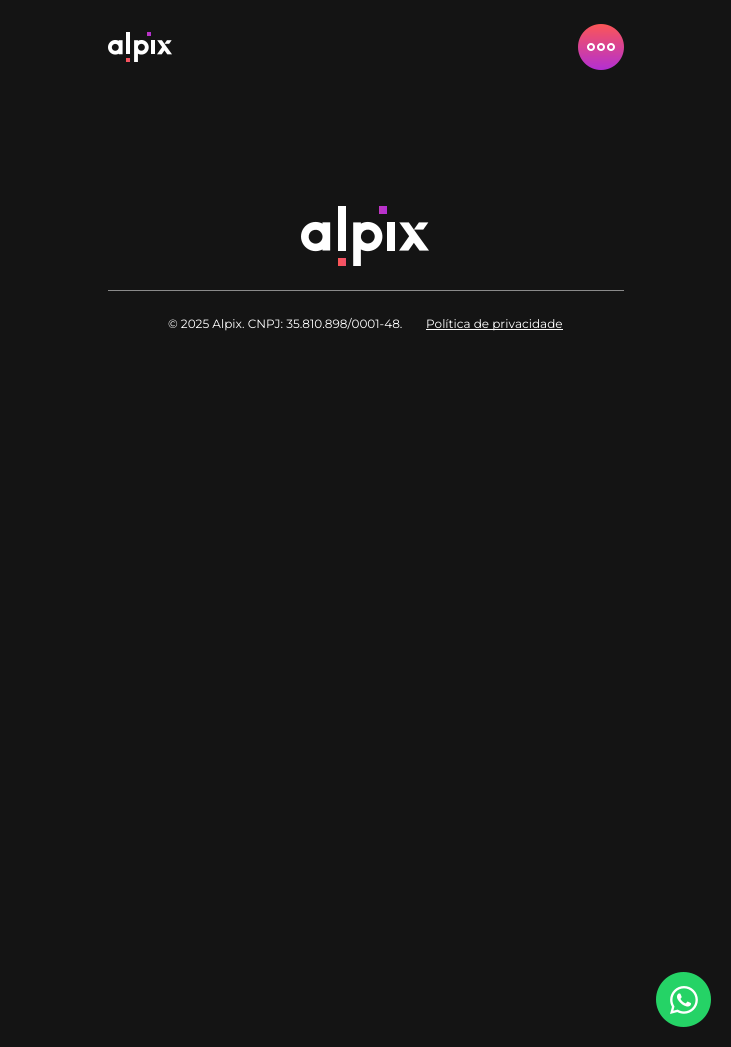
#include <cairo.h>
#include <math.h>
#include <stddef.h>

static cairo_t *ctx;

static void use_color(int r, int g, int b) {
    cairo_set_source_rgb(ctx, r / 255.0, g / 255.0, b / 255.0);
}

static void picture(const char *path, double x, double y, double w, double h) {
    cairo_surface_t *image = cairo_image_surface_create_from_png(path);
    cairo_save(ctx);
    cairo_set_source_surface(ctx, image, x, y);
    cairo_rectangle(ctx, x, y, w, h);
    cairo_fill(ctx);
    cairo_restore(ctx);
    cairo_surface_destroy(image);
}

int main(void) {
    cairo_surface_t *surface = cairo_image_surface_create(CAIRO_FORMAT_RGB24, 731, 1047);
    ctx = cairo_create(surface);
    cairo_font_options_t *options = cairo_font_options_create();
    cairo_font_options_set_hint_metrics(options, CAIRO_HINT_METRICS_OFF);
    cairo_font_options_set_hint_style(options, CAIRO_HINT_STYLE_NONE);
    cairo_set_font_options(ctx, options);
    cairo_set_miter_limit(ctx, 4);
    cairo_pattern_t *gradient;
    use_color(20, 20, 20);
    cairo_paint(ctx);
    picture("img1.png", 108, 32, 64, 30);
    gradient = cairo_pattern_create_linear(601, 24, 601, 70);
    cairo_pattern_add_color_stop_rgba(gradient, 0, 0.988, 0.337, 0.337, 1);
    cairo_pattern_add_color_stop_rgba(gradient, 1, 0.702, 0.184, 0.827, 1);
    cairo_set_source(ctx, gradient);
    cairo_pattern_destroy(gradient);
    cairo_arc(ctx, 601, 47, 23, 0, 2 * M_PI);
    cairo_fill(ctx);
    picture("img2.png", 587, 43, 28, 8);
    picture("img3.png", 301, 206, 128, 60);
    use_color(138, 138, 138);
    cairo_rectangle(ctx, 108, 290, 516, 1);
    cairo_fill(ctx);
    cairo_select_font_face(ctx, "Montserrat Thin", CAIRO_FONT_SLANT_NORMAL, CAIRO_FONT_WEIGHT_NORMAL);
    cairo_set_font_size(ctx, 12);
    use_color(255, 255, 255);
    cairo_move_to(ctx, 168, 328);
    cairo_show_text(ctx, "© 2025 Alpix. CNPJ: 35.810.898/0001-48.");
    cairo_rectangle(ctx, 426, 329, 137, 1);
    cairo_fill(ctx);
    cairo_move_to(ctx, 426, 328);
    cairo_show_text(ctx, "Política de privacidade");
    use_color(37, 211, 102);
    cairo_new_path(ctx);
    cairo_arc(ctx, 683.5, 999.5, 27.5, 0, 2 * M_PI);
    cairo_fill(ctx);
    picture("img4.png", 670, 986, 28, 28);
    cairo_surface_write_to_png(surface, "result.png");
    cairo_font_options_destroy(options);
    cairo_destroy(ctx);
    cairo_surface_destroy(surface);
    return 0;
}
